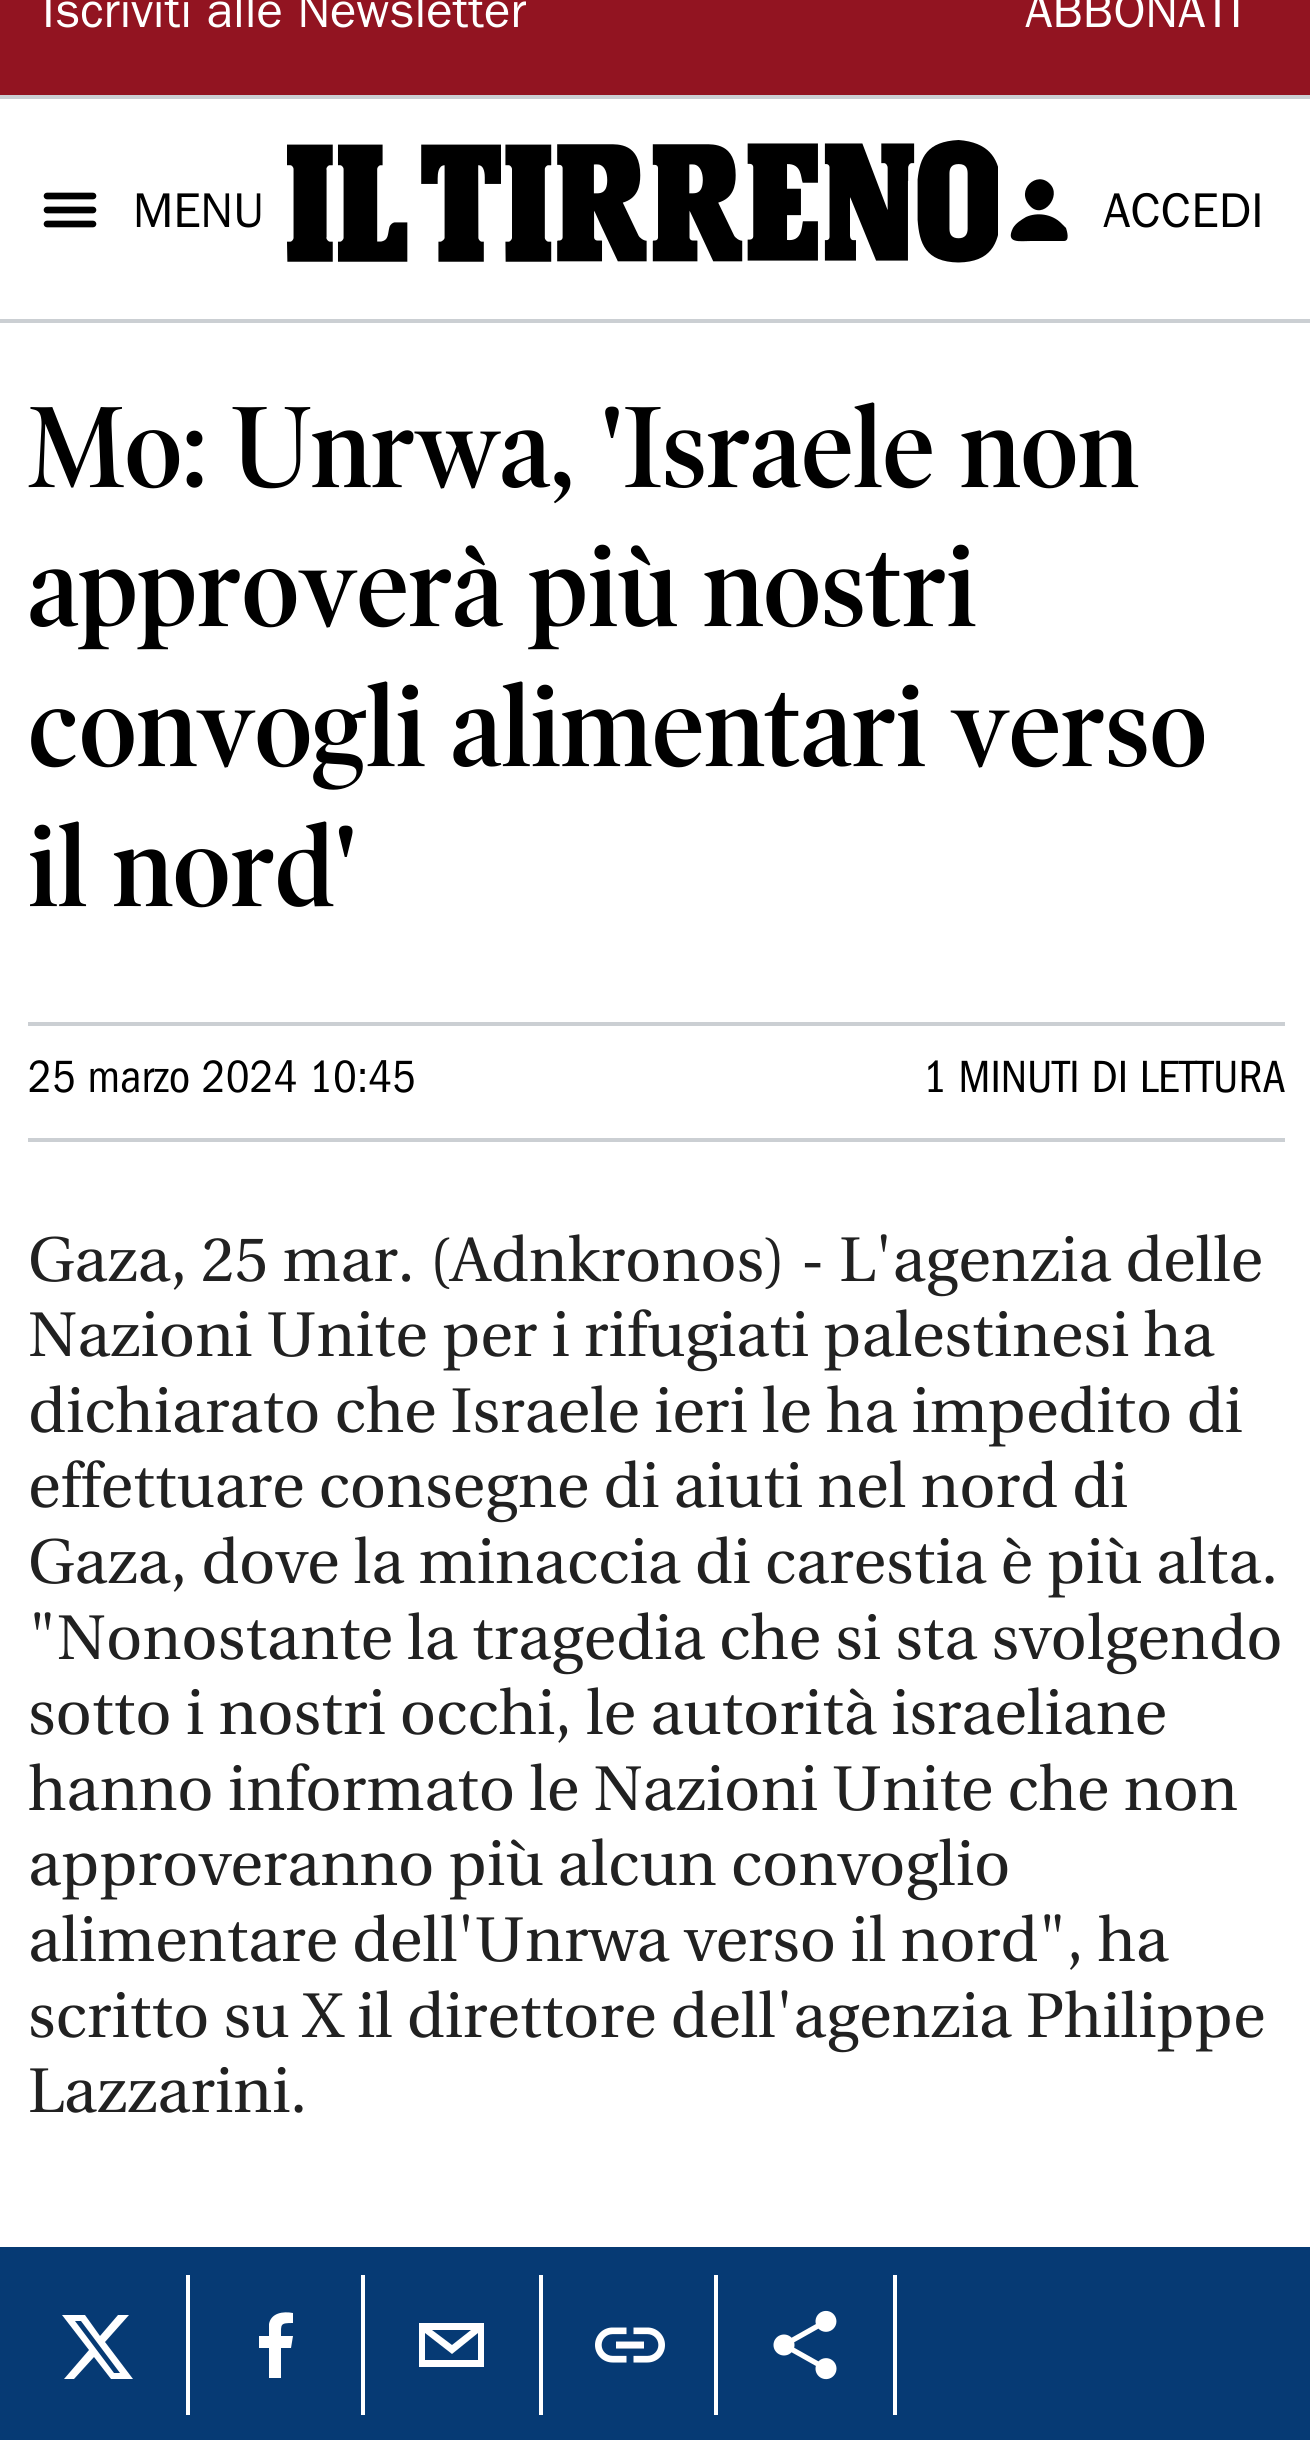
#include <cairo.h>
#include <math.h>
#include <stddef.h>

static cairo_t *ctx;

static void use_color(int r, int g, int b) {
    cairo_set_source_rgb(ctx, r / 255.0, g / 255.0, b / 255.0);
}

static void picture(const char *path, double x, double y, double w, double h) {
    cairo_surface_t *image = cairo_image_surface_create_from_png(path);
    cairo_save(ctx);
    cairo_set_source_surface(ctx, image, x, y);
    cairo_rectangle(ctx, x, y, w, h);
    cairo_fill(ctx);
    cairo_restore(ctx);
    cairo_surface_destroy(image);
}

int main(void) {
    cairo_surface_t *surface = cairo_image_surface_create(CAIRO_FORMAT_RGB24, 1310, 2440);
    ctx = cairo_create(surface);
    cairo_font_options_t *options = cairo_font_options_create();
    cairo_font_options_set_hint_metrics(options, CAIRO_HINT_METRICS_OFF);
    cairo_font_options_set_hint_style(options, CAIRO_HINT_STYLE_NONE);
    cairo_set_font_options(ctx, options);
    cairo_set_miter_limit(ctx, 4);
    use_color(255, 255, 255);
    cairo_paint(ctx);
    use_color(146, 20, 33);
    cairo_rectangle(ctx, 0, 0, 1310, 95);
    cairo_fill(ctx);
    use_color(203, 207, 211);
    cairo_rectangle(ctx, 0, 95, 1310, 4);
    cairo_fill(ctx);
    cairo_select_font_face(ctx, "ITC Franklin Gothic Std", CAIRO_FONT_SLANT_NORMAL, CAIRO_FONT_WEIGHT_NORMAL);
    cairo_set_font_size(ctx, 49);
    use_color(255, 255, 255);
    cairo_move_to(ctx, 42, 27);
    cairo_show_text(ctx, "Iscriviti alle Newsletter");
    cairo_move_to(ctx, 1025, 27);
    cairo_show_text(ctx, "ABBONATI");
    use_color(203, 207, 211);
    cairo_rectangle(ctx, 0, 319, 1310, 4);
    cairo_fill(ctx);
    cairo_new_path(ctx);
    cairo_move_to(ctx, 47, 196);
    cairo_line_to(ctx, 93, 196);
    cairo_move_to(ctx, 47, 210);
    cairo_line_to(ctx, 93, 210);
    cairo_move_to(ctx, 47, 224);
    cairo_line_to(ctx, 93, 224);
    use_color(0, 0, 0);
    cairo_set_line_width(ctx, 6.6);
    cairo_set_line_cap(ctx, CAIRO_LINE_CAP_ROUND);
    cairo_stroke(ctx);
    cairo_move_to(ctx, 133, 227);
    cairo_show_text(ctx, "MENU");
    picture("img1.png", 287, 140, 711, 123);
    cairo_new_path(ctx);
    cairo_move_to(ctx, 1050, 184);
    cairo_curve_to(ctx, 1037, 170, 1015, 190, 1030, 206);
    cairo_curve_to(ctx, 1043, 220, 1062, 196, 1050, 184);
    cairo_close_path(ctx);
    cairo_move_to(ctx, 1064, 241);
    cairo_line_to(ctx, 1031, 241);
    cairo_curve_to(ctx, 1020, 241, 1005, 244, 1013, 228);
    cairo_curve_to(ctx, 1016, 223, 1021, 220, 1026, 217);
    cairo_curve_to(ctx, 1037, 212, 1052, 214, 1061, 223);
    cairo_line_to(ctx, 1066, 228);
    cairo_curve_to(ctx, 1067, 231, 1070, 241, 1064, 241);
    cairo_close_path(ctx);
    cairo_fill(ctx);
    cairo_move_to(ctx, 1103, 227);
    cairo_show_text(ctx, "ACCEDI");
    cairo_select_font_face(ctx, "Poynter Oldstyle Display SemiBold", CAIRO_FONT_SLANT_NORMAL, CAIRO_FONT_WEIGHT_NORMAL);
    cairo_set_font_size(ctx, 116.75);
    cairo_move_to(ctx, 28, 487);
    cairo_show_text(ctx, "Mo: Unrwa, 'Israele non");
    cairo_move_to(ctx, 28, 626);
    cairo_show_text(ctx, "approverà più nostri");
    cairo_move_to(ctx, 28, 766);
    cairo_show_text(ctx, "convogli alimentari verso");
    cairo_move_to(ctx, 28, 906);
    cairo_show_text(ctx, "il nord'");
    use_color(203, 207, 211);
    cairo_rectangle(ctx, 28, 1022, 1257, 4);
    cairo_fill(ctx);
    cairo_rectangle(ctx, 28, 1138, 1257, 4);
    cairo_fill(ctx);
    cairo_select_font_face(ctx, "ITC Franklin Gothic", CAIRO_FONT_SLANT_NORMAL, CAIRO_FONT_WEIGHT_NORMAL);
    cairo_set_font_size(ctx, 46.75);
    use_color(0, 0, 0);
    cairo_move_to(ctx, 28, 1092);
    cairo_show_text(ctx, "25 marzo 2024 10:45");
    cairo_move_to(ctx, 923, 1092);
    cairo_show_text(ctx, "1 MINUTI DI LETTURA");
    cairo_select_font_face(ctx, "Utopia", CAIRO_FONT_SLANT_NORMAL, CAIRO_FONT_WEIGHT_NORMAL);
    cairo_set_font_size(ctx, 63);
    use_color(33, 33, 33);
    cairo_move_to(ctx, 28, 1281);
    cairo_show_text(ctx, "Gaza, 25 mar. (Adnkronos) - L'agenzia delle");
    cairo_move_to(ctx, 28, 1356);
    cairo_show_text(ctx, "Nazioni Unite per i rifugiati palestinesi ha");
    cairo_move_to(ctx, 28, 1432);
    cairo_show_text(ctx, "dichiarato che Israele ieri le ha impedito di");
    cairo_move_to(ctx, 28, 1507);
    cairo_show_text(ctx, "effettuare consegne di aiuti nel nord di");
    cairo_move_to(ctx, 28, 1583);
    cairo_show_text(ctx, "Gaza, dove la minaccia di carestia è più alta.");
    cairo_move_to(ctx, 28, 1659);
    cairo_show_text(ctx, "\"Nonostante la tragedia che si sta svolgendo");
    cairo_move_to(ctx, 28, 1734);
    cairo_show_text(ctx, "sotto i nostri occhi, le autorità israeliane");
    cairo_move_to(ctx, 28, 1810);
    cairo_show_text(ctx, "hanno informato le Nazioni Unite che non");
    cairo_move_to(ctx, 28, 1885);
    cairo_show_text(ctx, "approveranno più alcun convoglio");
    cairo_move_to(ctx, 28, 1961);
    cairo_show_text(ctx, "alimentare dell'Unrwa verso il nord\", ha");
    cairo_move_to(ctx, 28, 2037);
    cairo_show_text(ctx, "scritto su X il direttore dell'agenzia Philippe");
    cairo_move_to(ctx, 28, 2112);
    cairo_show_text(ctx, "Lazzarini.");
    use_color(6, 58, 116);
    cairo_rectangle(ctx, 0, 2247, 1310, 193);
    cairo_fill(ctx);
    use_color(255, 255, 255);
    cairo_new_path(ctx);
    cairo_move_to(ctx, 118, 2315);
    cairo_line_to(ctx, 129, 2315);
    cairo_line_to(ctx, 105, 2342);
    cairo_line_to(ctx, 133, 2379);
    cairo_line_to(ctx, 111, 2379);
    cairo_line_to(ctx, 94, 2357);
    cairo_line_to(ctx, 74, 2379);
    cairo_line_to(ctx, 64, 2379);
    cairo_line_to(ctx, 89, 2350);
    cairo_line_to(ctx, 62, 2315);
    cairo_line_to(ctx, 85, 2315);
    cairo_line_to(ctx, 100, 2336);
    cairo_close_path(ctx);
    cairo_move_to(ctx, 114, 2373);
    cairo_line_to(ctx, 120, 2373);
    cairo_line_to(ctx, 81, 2321);
    cairo_line_to(ctx, 75, 2321);
    cairo_close_path(ctx);
    cairo_fill(ctx);
    cairo_rectangle(ctx, 186, 2275, 4, 140);
    cairo_fill(ctx);
    cairo_new_path(ctx);
    cairo_move_to(ctx, 281, 2378);
    cairo_line_to(ctx, 281, 2348);
    cairo_line_to(ctx, 291, 2348);
    cairo_line_to(ctx, 293, 2336);
    cairo_line_to(ctx, 281, 2336);
    cairo_curve_to(ctx, 281, 2324, 280, 2323, 293, 2323);
    cairo_line_to(ctx, 293, 2313);
    cairo_curve_to(ctx, 283, 2311, 271, 2313, 269, 2324);
    cairo_line_to(ctx, 269, 2336);
    cairo_line_to(ctx, 259, 2336);
    cairo_line_to(ctx, 259, 2348);
    cairo_line_to(ctx, 269, 2348);
    cairo_line_to(ctx, 269, 2378);
    cairo_close_path(ctx);
    cairo_fill(ctx);
    cairo_rectangle(ctx, 361, 2275, 4, 140);
    cairo_fill(ctx);
    cairo_new_path(ctx);
    cairo_move_to(ctx, 419, 2323);
    cairo_line_to(ctx, 419, 2367);
    cairo_line_to(ctx, 484, 2367);
    cairo_line_to(ctx, 484, 2323);
    cairo_close_path(ctx);
    cairo_move_to(ctx, 471, 2330);
    cairo_line_to(ctx, 452, 2345);
    cairo_line_to(ctx, 432, 2330);
    cairo_close_path(ctx);
    cairo_move_to(ctx, 425, 2360);
    cairo_line_to(ctx, 425, 2333);
    cairo_line_to(ctx, 452, 2354);
    cairo_line_to(ctx, 478, 2333);
    cairo_line_to(ctx, 478, 2360);
    cairo_close_path(ctx);
    cairo_fill(ctx);
    cairo_rectangle(ctx, 539, 2275, 4, 140);
    cairo_fill(ctx);
    picture("img2.png", 595, 2327, 70, 36);
    cairo_rectangle(ctx, 714, 2275, 4, 140);
    cairo_fill(ctx);
    picture("img3.png", 773, 2310, 64, 70);
    cairo_rectangle(ctx, 893, 2275, 4, 140);
    cairo_fill(ctx);
    cairo_surface_write_to_png(surface, "result.png");
    cairo_font_options_destroy(options);
    cairo_destroy(ctx);
    cairo_surface_destroy(surface);
    return 0;
}
